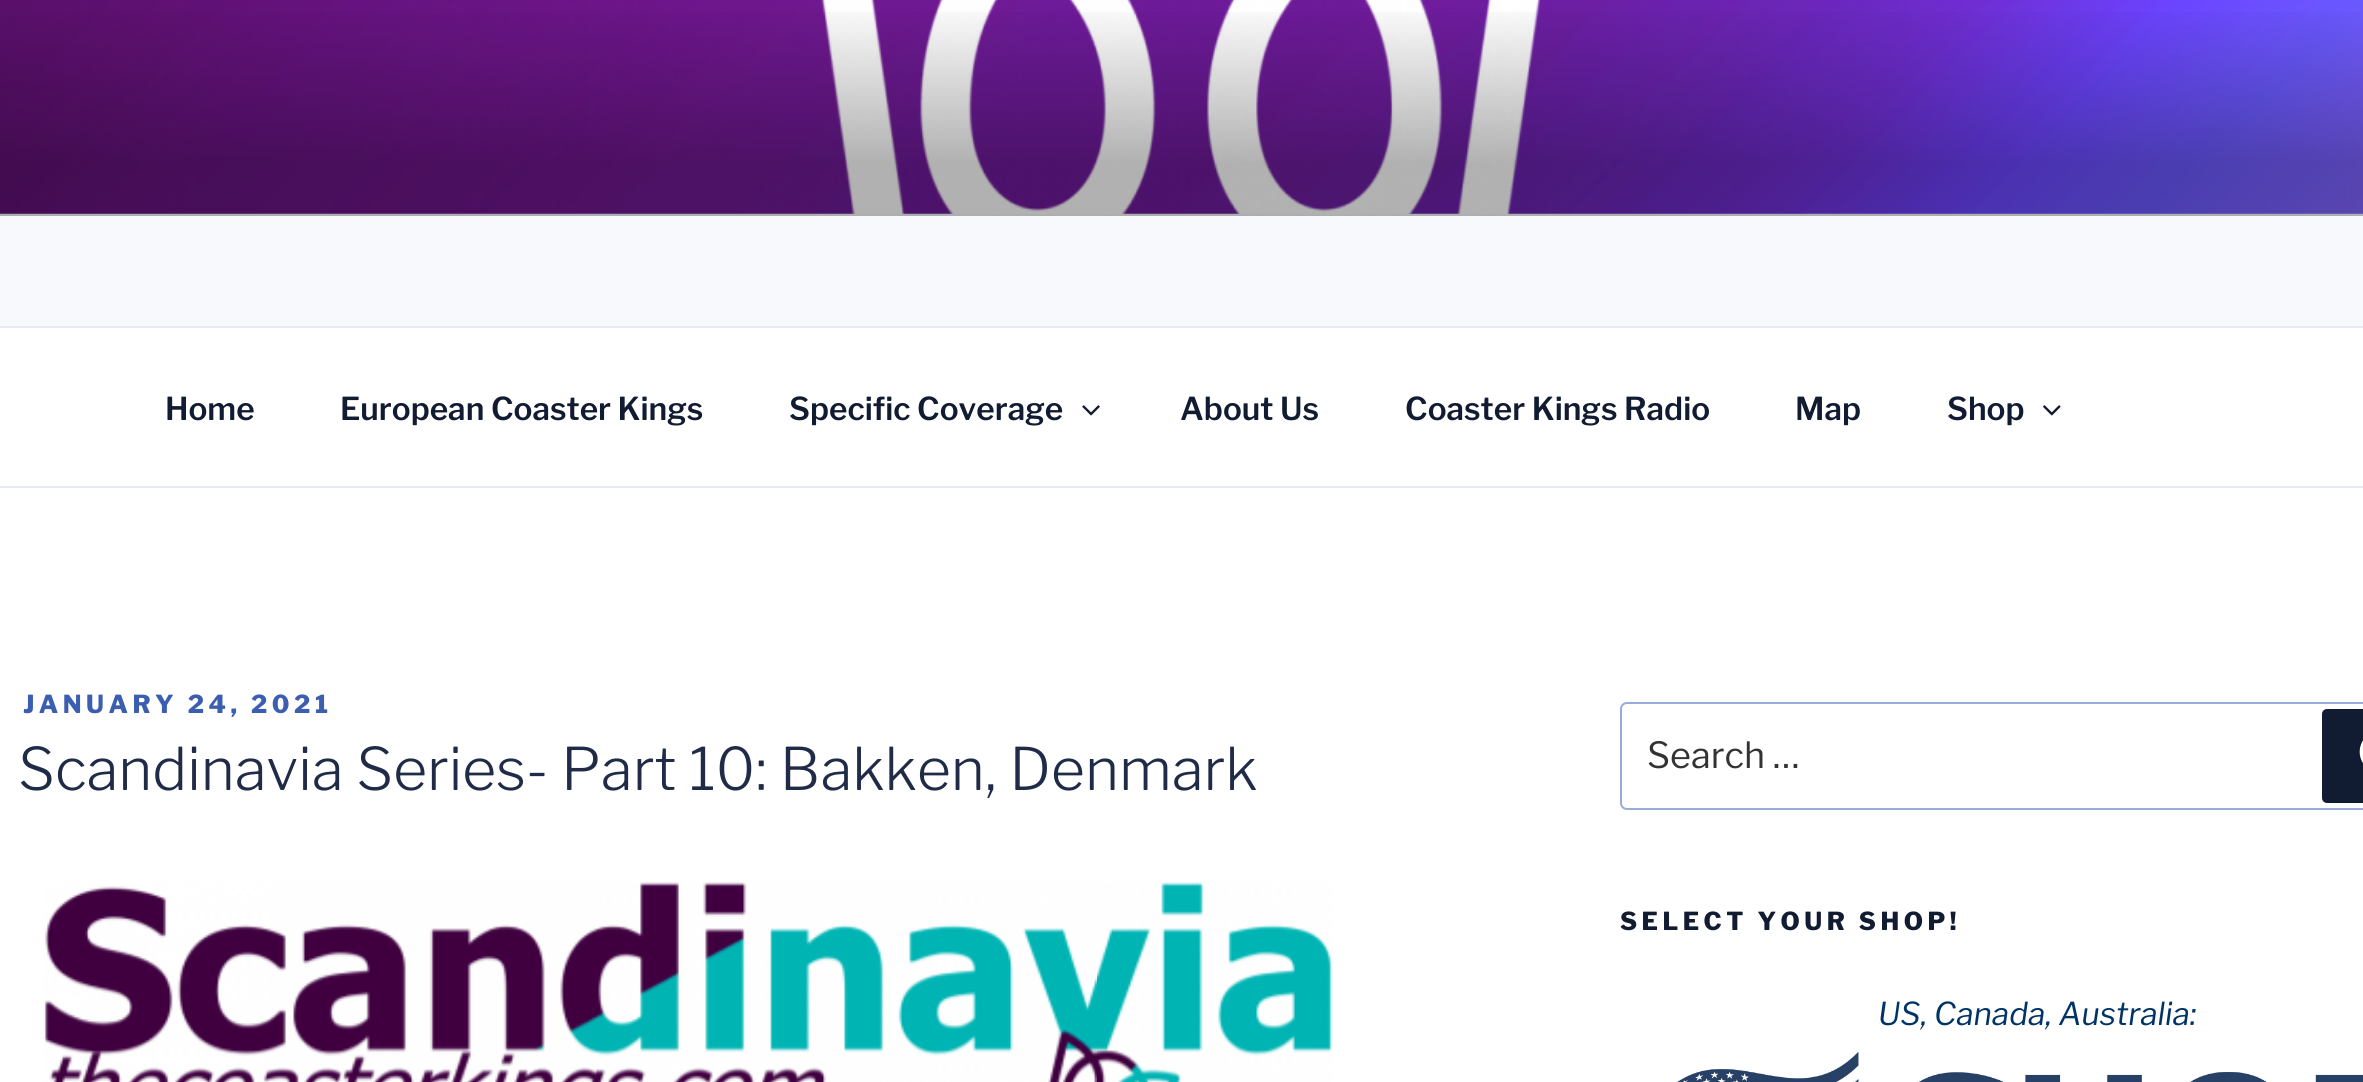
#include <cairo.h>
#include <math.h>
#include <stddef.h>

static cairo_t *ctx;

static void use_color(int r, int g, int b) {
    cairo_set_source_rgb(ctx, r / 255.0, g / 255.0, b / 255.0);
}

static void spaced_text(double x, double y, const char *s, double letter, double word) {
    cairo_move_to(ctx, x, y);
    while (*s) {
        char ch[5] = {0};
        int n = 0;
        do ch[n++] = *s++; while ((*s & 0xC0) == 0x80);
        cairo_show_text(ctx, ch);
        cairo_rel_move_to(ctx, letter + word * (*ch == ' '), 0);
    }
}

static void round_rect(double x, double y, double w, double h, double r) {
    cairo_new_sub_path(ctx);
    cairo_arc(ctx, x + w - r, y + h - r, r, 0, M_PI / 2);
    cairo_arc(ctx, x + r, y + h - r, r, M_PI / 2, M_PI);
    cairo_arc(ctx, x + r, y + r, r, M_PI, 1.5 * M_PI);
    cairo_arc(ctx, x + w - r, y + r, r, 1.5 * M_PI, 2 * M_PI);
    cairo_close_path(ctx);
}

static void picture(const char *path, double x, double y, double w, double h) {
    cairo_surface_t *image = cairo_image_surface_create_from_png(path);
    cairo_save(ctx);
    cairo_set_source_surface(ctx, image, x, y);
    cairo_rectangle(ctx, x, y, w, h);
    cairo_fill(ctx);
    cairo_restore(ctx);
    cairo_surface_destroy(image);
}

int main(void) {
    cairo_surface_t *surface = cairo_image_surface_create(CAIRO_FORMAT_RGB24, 2363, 1082);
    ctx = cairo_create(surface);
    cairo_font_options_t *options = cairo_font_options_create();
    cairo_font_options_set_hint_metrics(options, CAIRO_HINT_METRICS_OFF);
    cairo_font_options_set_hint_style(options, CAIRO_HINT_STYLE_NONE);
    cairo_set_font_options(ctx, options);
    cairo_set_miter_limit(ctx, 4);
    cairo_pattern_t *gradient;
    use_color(255, 255, 255);
    cairo_paint(ctx);
    use_color(247, 249, 252);
    cairo_rectangle(ctx, 0, 213, 2363, 113);
    cairo_fill(ctx);
    picture("img1.png", 0, 0, 2363, 214);
    gradient = cairo_pattern_create_linear(1182, 0, 1182, 216);
    cairo_pattern_add_color_stop_rgba(gradient, 0, 0, 0, 0, 0);
    cairo_pattern_add_color_stop_rgba(gradient, 0.75, 0, 0, 0, 0.3);
    cairo_pattern_add_color_stop_rgba(gradient, 1, 0, 0, 0, 0.3);
    cairo_set_source(ctx, gradient);
    cairo_pattern_destroy(gradient);
    cairo_rectangle(ctx, 0, 12, 2363, 204);
    cairo_fill(ctx);
    use_color(228, 234, 246);
    cairo_rectangle(ctx, 0, 326, 2363, 2);
    cairo_fill(ctx);
    cairo_rectangle(ctx, 0, 486, 2363, 2);
    cairo_fill(ctx);
    cairo_select_font_face(ctx, "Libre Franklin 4 Thin", CAIRO_FONT_SLANT_NORMAL, CAIRO_FONT_WEIGHT_NORMAL);
    cairo_set_font_size(ctx, 31.5);
    use_color(17, 27, 50);
    cairo_move_to(ctx, 165, 420);
    cairo_show_text(ctx, "Home");
    cairo_move_to(ctx, 340, 420);
    cairo_show_text(ctx, "European Coaster Kings");
    cairo_move_to(ctx, 789, 420);
    cairo_show_text(ctx, "Specific Coverage");
    picture("img2.png", 1082, 405, 18, 11);
    cairo_move_to(ctx, 1180, 420);
    cairo_show_text(ctx, "About Us");
    cairo_move_to(ctx, 1405, 420);
    cairo_show_text(ctx, "Coaster Kings Radio");
    cairo_move_to(ctx, 1795, 420);
    cairo_show_text(ctx, "Map");
    cairo_move_to(ctx, 1947, 420);
    cairo_show_text(ctx, "Shop");
    picture("img3.png", 2043, 405, 18, 11);
    cairo_select_font_face(ctx, "Libre Franklin Thin", CAIRO_FONT_SLANT_NORMAL, CAIRO_FONT_WEIGHT_NORMAL);
    cairo_set_font_size(ctx, 24.75);
    use_color(59, 94, 176);
    spaced_text(23, 713, "JANUARY 24, 2021", 4.5, 0);
    cairo_select_font_face(ctx, "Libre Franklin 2 Thin", CAIRO_FONT_SLANT_NORMAL, CAIRO_FONT_WEIGHT_NORMAL);
    cairo_set_font_size(ctx, 58.5);
    use_color(31, 43, 71);
    cairo_move_to(ctx, 18, 790);
    cairo_show_text(ctx, "Scandinavia Series- Part 10: Bakken, Denmark");
    picture("img4.png", 43, 882, 1290, 200);
    round_rect(1621, 703, 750, 106, 6);
    use_color(152, 172, 221);
    cairo_stroke(ctx);
    cairo_select_font_face(ctx, "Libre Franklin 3 Thin", CAIRO_FONT_SLANT_NORMAL, CAIRO_FONT_WEIGHT_NORMAL);
    cairo_set_font_size(ctx, 36);
    use_color(51, 51, 51);
    cairo_move_to(ctx, 1647, 768);
    cairo_show_text(ctx, "Search …");
    use_color(17, 27, 50);
    round_rect(2322, 709, 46, 94, 5);
    cairo_fill(ctx);
    picture("img5.png", 2359, 740, 4, 23);
    cairo_select_font_face(ctx, "Libre Franklin Thin", CAIRO_FONT_SLANT_NORMAL, CAIRO_FONT_WEIGHT_NORMAL);
    cairo_set_font_size(ctx, 24.75);
    spaced_text(1620, 930, "SELECT YOUR SHOP!", 4.5, 0);
    cairo_select_font_face(ctx, "Libre Franklin Thin", CAIRO_FONT_SLANT_ITALIC, CAIRO_FONT_WEIGHT_NORMAL);
    cairo_set_font_size(ctx, 31.5);
    use_color(0, 51, 102);
    cairo_move_to(ctx, 1878, 1025);
    cairo_show_text(ctx, "US, Canada, Australia:");
    picture("img6.png", 1677, 1051, 686, 31);
    cairo_surface_write_to_png(surface, "result.png");
    cairo_font_options_destroy(options);
    cairo_destroy(ctx);
    cairo_surface_destroy(surface);
    return 0;
}
